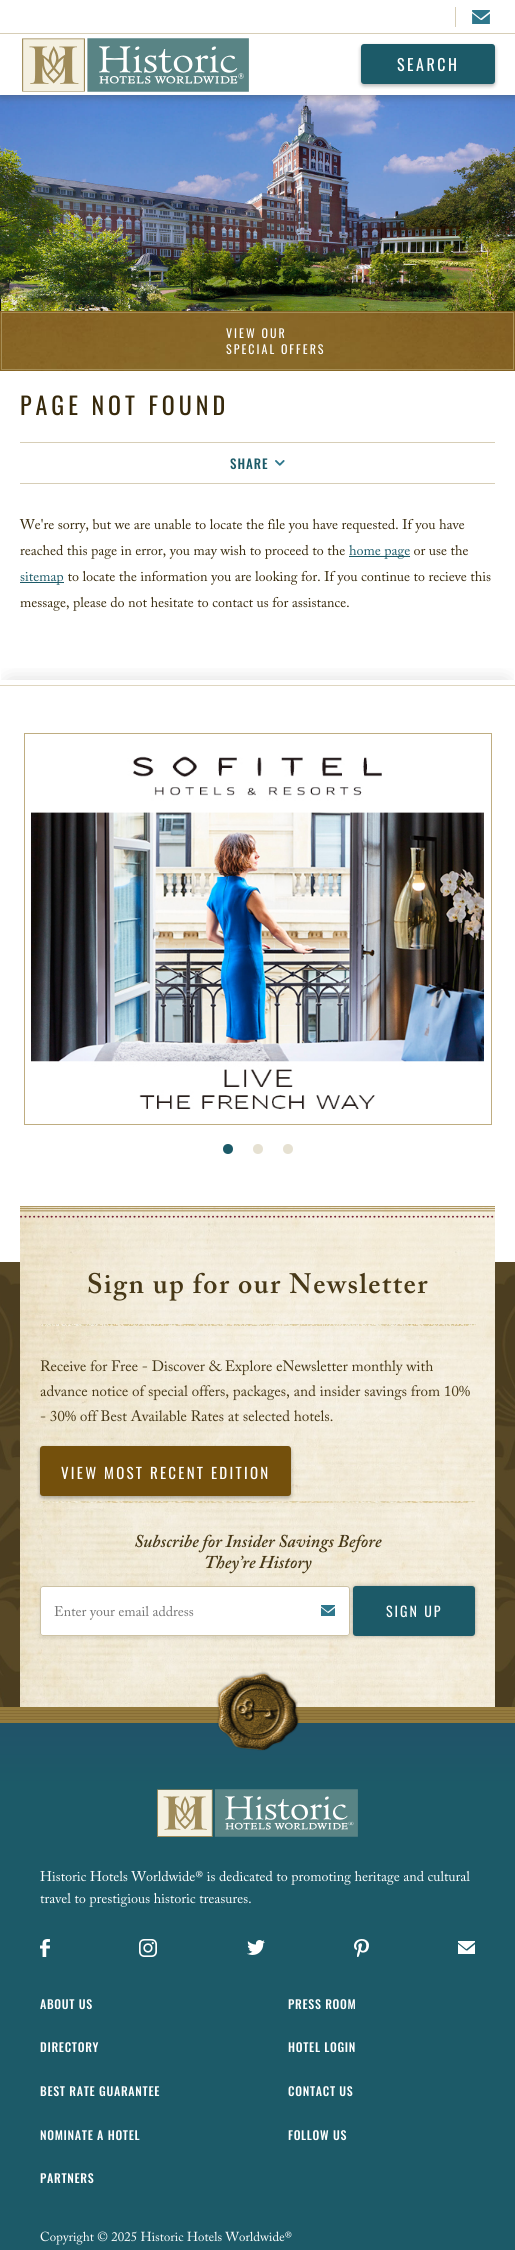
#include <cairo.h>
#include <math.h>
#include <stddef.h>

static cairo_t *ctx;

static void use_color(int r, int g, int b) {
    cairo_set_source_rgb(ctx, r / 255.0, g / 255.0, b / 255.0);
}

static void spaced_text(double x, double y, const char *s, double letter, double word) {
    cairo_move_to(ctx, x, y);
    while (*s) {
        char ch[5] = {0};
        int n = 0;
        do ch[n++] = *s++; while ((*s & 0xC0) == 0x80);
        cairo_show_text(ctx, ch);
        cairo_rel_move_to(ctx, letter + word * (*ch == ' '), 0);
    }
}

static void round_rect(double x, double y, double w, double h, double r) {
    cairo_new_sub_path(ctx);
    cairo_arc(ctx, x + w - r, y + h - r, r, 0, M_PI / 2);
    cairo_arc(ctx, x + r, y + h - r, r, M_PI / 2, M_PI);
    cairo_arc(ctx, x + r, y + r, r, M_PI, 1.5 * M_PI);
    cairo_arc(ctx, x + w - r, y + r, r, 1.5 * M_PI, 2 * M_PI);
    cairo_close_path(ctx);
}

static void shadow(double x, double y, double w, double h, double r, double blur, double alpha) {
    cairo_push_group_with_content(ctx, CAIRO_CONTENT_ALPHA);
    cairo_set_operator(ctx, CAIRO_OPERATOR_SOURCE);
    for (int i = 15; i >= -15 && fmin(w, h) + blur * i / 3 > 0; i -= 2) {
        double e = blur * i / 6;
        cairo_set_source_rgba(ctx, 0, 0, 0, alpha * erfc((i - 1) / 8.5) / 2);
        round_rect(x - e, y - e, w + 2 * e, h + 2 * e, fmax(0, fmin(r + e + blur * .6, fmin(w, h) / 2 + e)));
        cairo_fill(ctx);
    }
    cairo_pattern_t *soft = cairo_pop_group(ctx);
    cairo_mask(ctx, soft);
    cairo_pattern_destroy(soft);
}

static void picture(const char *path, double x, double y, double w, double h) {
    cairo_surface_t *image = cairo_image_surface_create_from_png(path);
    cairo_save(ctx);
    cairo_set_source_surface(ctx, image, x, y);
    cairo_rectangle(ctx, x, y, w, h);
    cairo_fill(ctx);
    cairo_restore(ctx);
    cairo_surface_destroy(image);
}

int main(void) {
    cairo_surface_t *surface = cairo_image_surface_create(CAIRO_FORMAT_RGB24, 515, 2250);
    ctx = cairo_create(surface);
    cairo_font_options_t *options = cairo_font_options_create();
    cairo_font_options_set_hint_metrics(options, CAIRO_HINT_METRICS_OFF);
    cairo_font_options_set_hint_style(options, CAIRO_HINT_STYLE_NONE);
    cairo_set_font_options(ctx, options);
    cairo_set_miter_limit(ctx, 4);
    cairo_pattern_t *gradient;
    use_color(255, 255, 255);
    cairo_paint(ctx);
    picture("img3.png", 0, 95, 515, 216);
    use_color(68, 68, 68);
    shadow(0, 0, 515, 95, 0, 5, 0.6);
    use_color(255, 255, 255);
    cairo_rectangle(ctx, 0, 0, 515, 95);
    cairo_fill(ctx);
    use_color(215, 206, 183);
    cairo_rectangle(ctx, 0, 33, 515, 1);
    cairo_fill(ctx);
    picture("img1.png", 472, 10, 18, 14);
    cairo_rectangle(ctx, 455, 7, 1, 20);
    cairo_fill(ctx);
    picture("img2.png", 22, 38, 227, 54);
    use_color(0, 0, 0);
    shadow(361, 46, 134, 40, 3, 2, 0.3);
    use_color(28, 90, 104);
    round_rect(361, 44, 134, 40, 3);
    cairo_fill(ctx);
    cairo_select_font_face(ctx, "Oswald", CAIRO_FONT_SLANT_NORMAL, CAIRO_FONT_WEIGHT_NORMAL);
    cairo_set_font_size(ctx, 16);
    use_color(255, 255, 255);
    spaced_text(397, 71, "SEARCH", 2.5, 0);
    picture("img4.png", 0, 311, 515, 60);
    cairo_rectangle(ctx, 1.5, 312.5, 512, 57);
    cairo_set_source_rgba(ctx, 0.686, 0.596, 0.384, 0.8);
    cairo_set_line_width(ctx, 1);
    cairo_stroke(ctx);
    cairo_set_font_size(ctx, 12);
    use_color(255, 255, 255);
    spaced_text(226, 338, "VIEW OUR", 2, 0);
    spaced_text(226, 354, "SPECIAL OFFERS", 2, 0);
    cairo_set_font_size(ctx, 24);
    use_color(55, 41, 11);
    spaced_text(20, 415, "PAGE NOT FOUND", 4, 0);
    use_color(215, 206, 183);
    cairo_rectangle(ctx, 20, 442, 475, 1);
    cairo_fill(ctx);
    cairo_rectangle(ctx, 20, 483, 475, 1);
    cairo_fill(ctx);
    cairo_select_font_face(ctx, "Oswald Medium", CAIRO_FONT_SLANT_NORMAL, CAIRO_FONT_WEIGHT_NORMAL);
    cairo_set_font_size(ctx, 13);
    use_color(28, 90, 104);
    spaced_text(230, 469, "SHARE", 1, 0);
    picture("img5.png", 275, 460, 10, 6);
    picture("img6.png", 19, 518, 446, 15);
    picture("img7.png", 20, 544, 325, 15);
    cairo_rectangle(ctx, 349, 556, 61, 1);
    cairo_fill(ctx);
    picture("img8.png", 349, 544, 61, 15);
    picture("img9.png", 414, 545, 54, 11);
    cairo_rectangle(ctx, 20, 582, 44, 1);
    cairo_fill(ctx);
    picture("img10.png", 20, 572, 44, 13);
    picture("img11.png", 68, 570, 423, 15);
    picture("img12.png", 20, 596, 329, 15);
    cairo_save(ctx);
    cairo_rectangle(ctx, 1, 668, 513, 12);
    cairo_clip(ctx);
    use_color(68, 68, 68);
    shadow(10, 685, 495, 506, 0, 11, 0.3);
    cairo_restore(ctx);
    use_color(223, 214, 192);
    cairo_rectangle(ctx, 0, 685, 515, 1);
    cairo_fill(ctx);
    cairo_rectangle(ctx, 24.5, 733.5, 467, 391);
    use_color(191, 173, 129);
    cairo_stroke(ctx);
    picture("img13.png", 31, 756, 453, 353);
    use_color(28, 90, 104);
    cairo_arc(ctx, 228, 1149, 5, 0, 2 * M_PI);
    cairo_fill(ctx);
    use_color(230, 225, 210);
    cairo_arc(ctx, 258, 1149, 5, 0, 2 * M_PI);
    cairo_fill(ctx);
    cairo_arc(ctx, 288, 1149, 5, 0, 2 * M_PI);
    cairo_fill(ctx);
    picture("img14.png", 0, 1262, 515, 445);
    picture("img15.png", 20, 1207, 475, 500);
    picture("img16.png", 20, 1206, 475, 12);
    picture("img17.png", 88, 1272, 340, 29);
    picture("img18.png", 40, 1324, 436, 2);
    picture("img19.png", 40, 1360, 98, 12);
    picture("img20.png", 142, 1360, 291, 16);
    picture("img21.png", 40, 1385, 430, 16);
    picture("img22.png", 40, 1410, 293, 12);
    use_color(0, 0, 0);
    shadow(40, 1448, 251, 50, 3, 2, 0.3);
    use_color(116, 80, 12);
    round_rect(40, 1446, 251, 50, 3);
    cairo_fill(ctx);
    cairo_select_font_face(ctx, "Oswald", CAIRO_FONT_SLANT_NORMAL, CAIRO_FONT_WEIGHT_NORMAL);
    cairo_set_font_size(ctx, 15);
    use_color(255, 255, 255);
    spaced_text(61, 1479, "VIEW MOST RECENT EDITION", 2.25, 0);
    picture("img23.png", 40, 1501, 435, 2);
    picture("img24.png", 135, 1534, 247, 19);
    picture("img25.png", 205, 1555, 107, 19);
    use_color(0, 0, 0);
    shadow(40, 1588, 310, 50, 3, 2, 0.1);
    use_color(255, 255, 255);
    round_rect(40, 1586, 310, 50, 3);
    cairo_fill(ctx);
    picture("img26.png", 321, 1605, 14, 11);
    round_rect(40.5, 1586.5, 309, 49, 2.5);
    use_color(205, 194, 164);
    cairo_stroke(ctx);
    picture("img27.png", 54, 1605, 140, 15);
    use_color(0, 0, 0);
    shadow(353, 1586, 122, 50, 3, 2, 0.3);
    use_color(28, 90, 104);
    round_rect(353, 1586, 122, 50, 3);
    cairo_fill(ctx);
    cairo_set_font_size(ctx, 14);
    use_color(255, 255, 255);
    spaced_text(386, 1617, "SIGN UP", 2, 0);
    picture("img29.png", 0, 1707, 515, 16);
    gradient = cairo_pattern_create_linear(258, 1786, 258, 1723);
    cairo_pattern_add_color_stop_rgba(gradient, 0, 0.11, 0.353, 0.408, 1);
    cairo_pattern_add_color_stop_rgba(gradient, 1, 0.129, 0.325, 0.412, 1);
    cairo_set_source(ctx, gradient);
    cairo_pattern_destroy(gradient);
    cairo_rectangle(ctx, 0, 1723, 515, 63);
    cairo_fill(ctx);
    picture("img28.png", 216, 1671, 84, 80);
    use_color(28, 90, 104);
    cairo_rectangle(ctx, 0, 1786, 515, 464);
    cairo_fill(ctx);
    picture("img30.png", 157, 1789, 201, 48);
    picture("img31.png", 40, 1870, 430, 15);
    picture("img32.png", 40, 1892, 211, 15);
    picture("img33.png", 40, 1939, 10, 18);
    picture("img34.png", 139, 1939, 18, 18);
    picture("img35.png", 247, 1940, 18, 15);
    picture("img36.png", 354, 1939, 15, 18);
    picture("img37.png", 458, 1941, 17, 13);
    cairo_select_font_face(ctx, "Oswald Medium", CAIRO_FONT_SLANT_NORMAL, CAIRO_FONT_WEIGHT_NORMAL);
    cairo_set_font_size(ctx, 12);
    use_color(255, 255, 255);
    spaced_text(40, 2009, "ABOUT US", 0.7, 0);
    spaced_text(40, 2052, "DIRECTORY", 0.7, 0);
    spaced_text(40, 2096, "BEST RATE GUARANTEE", 0.7, 0);
    spaced_text(40, 2140, "NOMINATE A HOTEL", 0.7, 0);
    spaced_text(40, 2183, "PARTNERS", 0.7, 0);
    spaced_text(288, 2009, "PRESS ROOM", 0.7, 0);
    spaced_text(288, 2052, "HOTEL LOGIN", 0.7, 0);
    spaced_text(288, 2096, "CONTACT US", 0.7, 0);
    spaced_text(288, 2140, "FOLLOW US", 0.7, 0);
    picture("img38.png", 40, 2231, 252, 14);
    cairo_surface_write_to_png(surface, "result.png");
    cairo_font_options_destroy(options);
    cairo_destroy(ctx);
    cairo_surface_destroy(surface);
    return 0;
}
